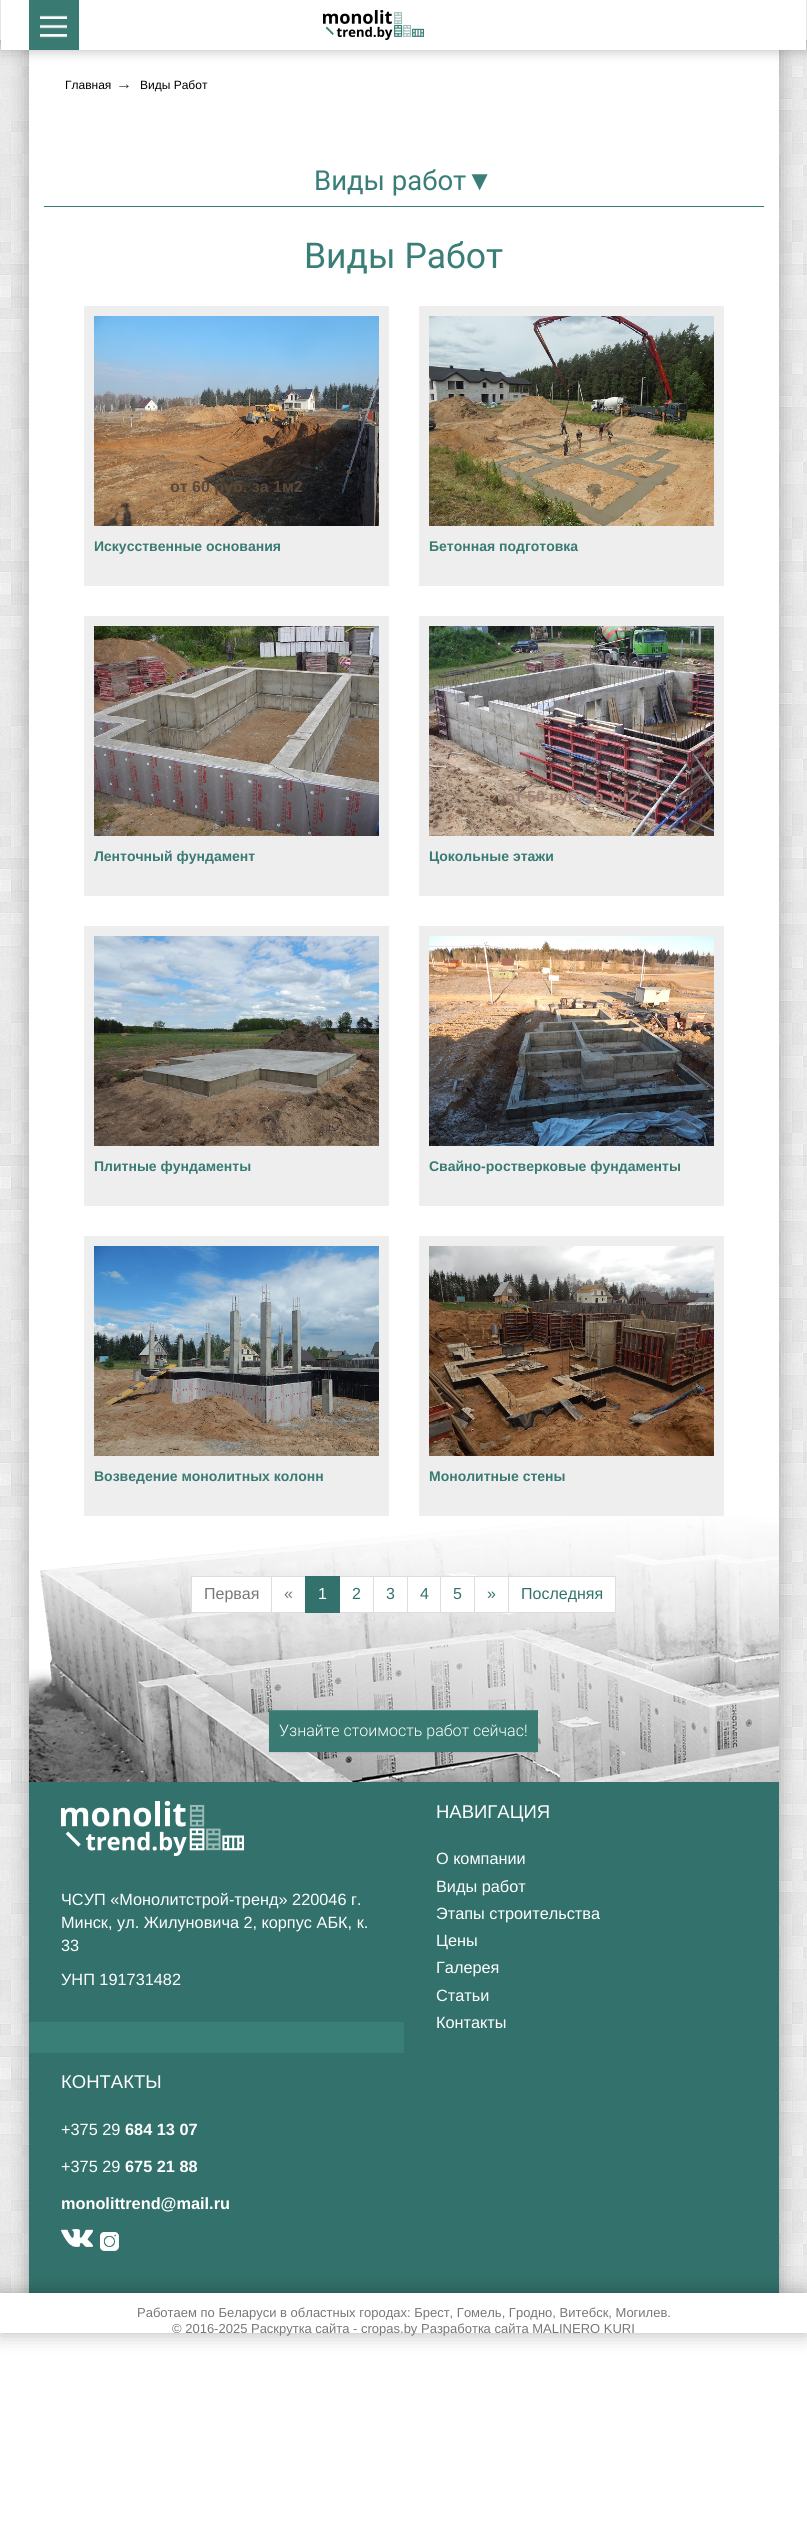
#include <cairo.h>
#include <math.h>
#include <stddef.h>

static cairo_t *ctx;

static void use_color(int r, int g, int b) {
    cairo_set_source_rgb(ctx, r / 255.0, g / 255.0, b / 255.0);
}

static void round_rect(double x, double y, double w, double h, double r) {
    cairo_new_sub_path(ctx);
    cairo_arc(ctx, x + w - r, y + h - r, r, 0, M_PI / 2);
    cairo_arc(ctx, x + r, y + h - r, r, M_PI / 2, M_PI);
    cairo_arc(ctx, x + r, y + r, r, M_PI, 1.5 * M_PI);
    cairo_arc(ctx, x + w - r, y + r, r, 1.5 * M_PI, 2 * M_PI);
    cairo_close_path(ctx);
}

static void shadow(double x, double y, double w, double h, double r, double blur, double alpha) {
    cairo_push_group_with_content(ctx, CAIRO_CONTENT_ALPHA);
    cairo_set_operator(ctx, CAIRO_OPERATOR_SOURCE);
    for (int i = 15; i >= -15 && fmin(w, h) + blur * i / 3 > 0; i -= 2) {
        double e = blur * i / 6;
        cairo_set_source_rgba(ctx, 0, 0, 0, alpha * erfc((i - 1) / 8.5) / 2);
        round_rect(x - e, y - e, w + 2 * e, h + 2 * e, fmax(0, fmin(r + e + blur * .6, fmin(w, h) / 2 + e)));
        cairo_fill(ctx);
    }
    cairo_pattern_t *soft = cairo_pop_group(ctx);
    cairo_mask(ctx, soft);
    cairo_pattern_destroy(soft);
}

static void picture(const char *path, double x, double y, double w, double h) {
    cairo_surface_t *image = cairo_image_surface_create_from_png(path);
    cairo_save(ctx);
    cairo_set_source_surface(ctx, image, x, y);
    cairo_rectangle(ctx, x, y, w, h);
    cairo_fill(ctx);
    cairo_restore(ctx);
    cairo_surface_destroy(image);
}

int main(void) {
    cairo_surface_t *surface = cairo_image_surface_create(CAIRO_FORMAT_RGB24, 807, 2547);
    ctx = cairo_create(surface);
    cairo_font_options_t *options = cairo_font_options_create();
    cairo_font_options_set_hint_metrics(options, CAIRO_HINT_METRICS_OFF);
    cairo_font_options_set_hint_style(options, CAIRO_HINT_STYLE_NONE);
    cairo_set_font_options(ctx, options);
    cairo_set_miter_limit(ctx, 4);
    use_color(255, 255, 255);
    cairo_paint(ctx);
    picture("img1.png", 0, 40, 807, 2253);
    use_color(0, 0, 0);
    shadow(29, 44, 750, 2253, 0, 10, 0.3);
    use_color(255, 255, 255);
    cairo_rectangle(ctx, 29, 50, 750, 1732);
    cairo_fill(ctx);
    use_color(0, 0, 0);
    shadow(0, 0, 807, 40, 0, 10, 0.3);
    use_color(255, 255, 255);
    cairo_rectangle(ctx, 0, 0, 807, 40);
    cairo_fill(ctx);
    use_color(0, 0, 0);
    shadow(0, 0, 807, 50, 0, 7, 0.2);
    cairo_save(ctx);
    cairo_rectangle(ctx, 0, 0, 807, 50);
    cairo_clip(ctx);
    use_color(255, 255, 255);
    cairo_set_fill_rule(ctx, CAIRO_FILL_RULE_EVEN_ODD);
    cairo_new_path(ctx);
    cairo_move_to(ctx, 1, 0);
    cairo_line_to(ctx, 1, 166);
    cairo_line_to(ctx, 196, 360);
    cairo_line_to(ctx, 806, 222);
    cairo_line_to(ctx, 806, 0);
    cairo_close_path(ctx);
    cairo_fill(ctx);
    cairo_restore(ctx);
    picture("img2.png", 323, 10, 101, 30);
    use_color(57, 122, 114);
    cairo_rectangle(ctx, 29, 0, 50, 50);
    cairo_fill(ctx);
    picture("img3.png", 40, 15, 27, 23);
    picture("img4.png", 29, 1516, 750, 266);
    cairo_select_font_face(ctx, "Liberation Sans", CAIRO_FONT_SLANT_NORMAL, CAIRO_FONT_WEIGHT_NORMAL);
    cairo_set_font_size(ctx, 12);
    use_color(0, 0, 0);
    cairo_move_to(ctx, 65, 89);
    cairo_show_text(ctx, "Главная");
    cairo_set_font_size(ctx, 16);
    use_color(51, 51, 51);
    cairo_move_to(ctx, 116, 89);
    cairo_show_text(ctx, "→");
    cairo_set_font_size(ctx, 12);
    use_color(0, 0, 0);
    cairo_move_to(ctx, 140, 89);
    cairo_show_text(ctx, "Виды Работ");
    use_color(57, 122, 114);
    cairo_rectangle(ctx, 44, 206, 720, 1);
    cairo_fill(ctx);
    cairo_select_font_face(ctx, "Roboto", CAIRO_FONT_SLANT_NORMAL, CAIRO_FONT_WEIGHT_NORMAL);
    cairo_set_font_size(ctx, 27.5);
    use_color(57, 127, 120);
    cairo_move_to(ctx, 314, 190);
    cairo_show_text(ctx, "Виды работ");
    cairo_select_font_face(ctx, "Liberation Sans", CAIRO_FONT_SLANT_NORMAL, CAIRO_FONT_WEIGHT_NORMAL);
    cairo_move_to(ctx, 466, 190);
    cairo_show_text(ctx, "▼");
    cairo_select_font_face(ctx, "Roboto", CAIRO_FONT_SLANT_NORMAL, CAIRO_FONT_WEIGHT_NORMAL);
    cairo_set_font_size(ctx, 35.5);
    cairo_move_to(ctx, 304, 268);
    cairo_show_text(ctx, "Виды Работ");
    use_color(238, 238, 238);
    cairo_rectangle(ctx, 84, 306, 305, 280);
    cairo_fill(ctx);
    picture("img5.png", 94, 316, 285, 210);
    cairo_select_font_face(ctx, "Liberation Sans", CAIRO_FONT_SLANT_NORMAL, CAIRO_FONT_WEIGHT_BOLD);
    cairo_set_font_size(ctx, 16);
    use_color(90, 73, 57);
    cairo_move_to(ctx, 170, 492);
    cairo_show_text(ctx, "от 60 руб. за 1м2");
    cairo_set_font_size(ctx, 14);
    use_color(57, 122, 114);
    cairo_move_to(ctx, 94, 551);
    cairo_show_text(ctx, "Искусственные основания");
    use_color(238, 238, 238);
    cairo_rectangle(ctx, 419, 306, 305, 280);
    cairo_fill(ctx);
    picture("img6.png", 429, 316, 285, 210);
    use_color(57, 122, 114);
    cairo_move_to(ctx, 429, 551);
    cairo_show_text(ctx, "Бетонная подготовка");
    use_color(238, 238, 238);
    cairo_rectangle(ctx, 84, 616, 305, 280);
    cairo_fill(ctx);
    picture("img7.png", 94, 626, 285, 210);
    use_color(57, 122, 114);
    cairo_move_to(ctx, 94, 861);
    cairo_show_text(ctx, "Ленточный фундамент");
    use_color(238, 238, 238);
    cairo_rectangle(ctx, 419, 616, 305, 280);
    cairo_fill(ctx);
    picture("img8.png", 429, 626, 285, 210);
    cairo_set_font_size(ctx, 16);
    use_color(161, 131, 121);
    cairo_move_to(ctx, 505, 802);
    cairo_show_text(ctx, "от 50 руб. за 1м2");
    cairo_set_font_size(ctx, 14);
    use_color(57, 122, 114);
    cairo_move_to(ctx, 429, 861);
    cairo_show_text(ctx, "Цокольные этажи");
    use_color(238, 238, 238);
    cairo_rectangle(ctx, 84, 926, 305, 280);
    cairo_fill(ctx);
    picture("img9.png", 94, 936, 285, 210);
    use_color(57, 122, 114);
    cairo_move_to(ctx, 94, 1171);
    cairo_show_text(ctx, "Плитные фундаменты");
    use_color(238, 238, 238);
    cairo_rectangle(ctx, 419, 926, 305, 280);
    cairo_fill(ctx);
    picture("img10.png", 429, 936, 285, 210);
    use_color(57, 122, 114);
    cairo_move_to(ctx, 429, 1171);
    cairo_show_text(ctx, "Свайно-ростверковые фундаменты");
    use_color(238, 238, 238);
    cairo_rectangle(ctx, 84, 1236, 305, 280);
    cairo_fill(ctx);
    picture("img11.png", 94, 1246, 285, 210);
    use_color(57, 122, 114);
    cairo_move_to(ctx, 94, 1481);
    cairo_show_text(ctx, "Возведение монолитных колонн");
    use_color(238, 238, 238);
    cairo_rectangle(ctx, 419, 1236, 305, 280);
    cairo_fill(ctx);
    picture("img12.png", 429, 1246, 285, 210);
    cairo_set_font_size(ctx, 16);
    use_color(106, 79, 57);
    cairo_move_to(ctx, 523, 1422);
    cairo_show_text(ctx, "у");
    cairo_set_font_size(ctx, 14);
    use_color(57, 122, 114);
    cairo_move_to(ctx, 429, 1481);
    cairo_show_text(ctx, "Монолитные стены");
    use_color(255, 255, 255);
    cairo_rectangle(ctx, 191.5, 1576.5, 80, 36);
    cairo_fill_preserve(ctx);
    use_color(221, 221, 221);
    cairo_set_line_width(ctx, 1);
    cairo_stroke(ctx);
    cairo_select_font_face(ctx, "Liberation Sans", CAIRO_FONT_SLANT_NORMAL, CAIRO_FONT_WEIGHT_NORMAL);
    cairo_set_font_size(ctx, 16);
    use_color(119, 119, 119);
    cairo_move_to(ctx, 204, 1599);
    cairo_show_text(ctx, "Первая");
    use_color(255, 255, 255);
    cairo_rectangle(ctx, 271.5, 1576.5, 34, 36);
    cairo_fill_preserve(ctx);
    use_color(221, 221, 221);
    cairo_stroke(ctx);
    use_color(119, 119, 119);
    cairo_move_to(ctx, 284, 1599);
    cairo_show_text(ctx, "«");
    use_color(255, 255, 255);
    cairo_rectangle(ctx, 339.5, 1576.5, 34, 36);
    cairo_fill_preserve(ctx);
    use_color(221, 221, 221);
    cairo_stroke(ctx);
    use_color(51, 114, 108);
    cairo_rectangle(ctx, 305, 1576, 35, 37);
    cairo_fill(ctx);
    use_color(255, 255, 255);
    cairo_move_to(ctx, 318, 1599);
    cairo_show_text(ctx, "1");
    use_color(51, 114, 108);
    cairo_move_to(ctx, 352, 1599);
    cairo_show_text(ctx, "2");
    use_color(255, 255, 255);
    cairo_rectangle(ctx, 373.5, 1576.5, 34, 36);
    cairo_fill_preserve(ctx);
    use_color(221, 221, 221);
    cairo_stroke(ctx);
    use_color(51, 114, 108);
    cairo_move_to(ctx, 386, 1599);
    cairo_show_text(ctx, "3");
    use_color(255, 255, 255);
    cairo_rectangle(ctx, 407.5, 1576.5, 33, 36);
    cairo_fill_preserve(ctx);
    use_color(221, 221, 221);
    cairo_stroke(ctx);
    use_color(51, 114, 108);
    cairo_move_to(ctx, 420, 1599);
    cairo_show_text(ctx, "4");
    use_color(255, 255, 255);
    cairo_rectangle(ctx, 440.5, 1576.5, 34, 36);
    cairo_fill_preserve(ctx);
    use_color(221, 221, 221);
    cairo_stroke(ctx);
    use_color(51, 114, 108);
    cairo_move_to(ctx, 453, 1599);
    cairo_show_text(ctx, "5");
    use_color(255, 255, 255);
    cairo_rectangle(ctx, 474.5, 1576.5, 34, 36);
    cairo_fill_preserve(ctx);
    use_color(221, 221, 221);
    cairo_stroke(ctx);
    use_color(51, 114, 108);
    cairo_move_to(ctx, 487, 1599);
    cairo_show_text(ctx, "»");
    use_color(255, 255, 255);
    cairo_rectangle(ctx, 508.5, 1576.5, 107, 36);
    cairo_fill_preserve(ctx);
    use_color(221, 221, 221);
    cairo_stroke(ctx);
    use_color(51, 114, 108);
    cairo_move_to(ctx, 521, 1599);
    cairo_show_text(ctx, "Последняя");
    use_color(0, 0, 0);
    shadow(269, 1711, 269, 42, 0, 0.5, 0.07);
    use_color(57, 122, 114);
    cairo_rectangle(ctx, 269, 1711, 269, 41);
    cairo_fill(ctx);
    use_color(87, 142, 135);
    cairo_rectangle(ctx, 269, 1710, 269, 1);
    cairo_fill(ctx);
    cairo_select_font_face(ctx, "Roboto Light", CAIRO_FONT_SLANT_NORMAL, CAIRO_FONT_WEIGHT_NORMAL);
    use_color(255, 255, 255);
    cairo_move_to(ctx, 279, 1736);
    cairo_show_text(ctx, "Узнайте стоимость работ сейчас!");
    use_color(57, 127, 120);
    cairo_rectangle(ctx, 29, 2022, 375, 31);
    cairo_fill(ctx);
    use_color(51, 114, 108);
    cairo_rectangle(ctx, 29, 1782, 375, 240);
    cairo_fill(ctx);
    picture("img13.png", 61, 1801, 183, 55);
    cairo_select_font_face(ctx, "Liberation Sans", CAIRO_FONT_SLANT_NORMAL, CAIRO_FONT_WEIGHT_NORMAL);
    cairo_set_font_size(ctx, 16.3);
    use_color(255, 255, 255);
    cairo_move_to(ctx, 61, 1905);
    cairo_show_text(ctx, "ЧСУП «Монолитстрой-тренд» 220046 г.");
    cairo_move_to(ctx, 61, 1928);
    cairo_show_text(ctx, "Минск, ул. Жилуновича 2, корпус АБК, к.");
    cairo_move_to(ctx, 61, 1951);
    cairo_show_text(ctx, "33");
    cairo_move_to(ctx, 61, 1985);
    cairo_show_text(ctx, "УНП 191731482");
    use_color(51, 114, 108);
    cairo_rectangle(ctx, 404, 1782, 375, 271);
    cairo_fill(ctx);
    cairo_set_font_size(ctx, 18.5);
    use_color(255, 255, 255);
    cairo_move_to(ctx, 436, 1818);
    cairo_show_text(ctx, "НАВИГАЦИЯ");
    cairo_set_font_size(ctx, 16.3);
    cairo_move_to(ctx, 436, 1864);
    cairo_show_text(ctx, "О компании");
    cairo_move_to(ctx, 436, 1892);
    cairo_show_text(ctx, "Виды работ");
    cairo_move_to(ctx, 436, 1919);
    cairo_show_text(ctx, "Этапы строительства");
    cairo_move_to(ctx, 436, 1946);
    cairo_show_text(ctx, "Цены");
    cairo_move_to(ctx, 436, 1973);
    cairo_show_text(ctx, "Галерея");
    cairo_move_to(ctx, 436, 2001);
    cairo_show_text(ctx, "Статьи");
    cairo_move_to(ctx, 436, 2028);
    cairo_show_text(ctx, "Контакты");
    use_color(51, 114, 108);
    cairo_rectangle(ctx, 29, 2053, 750, 240);
    cairo_fill(ctx);
    cairo_set_font_size(ctx, 18.5);
    use_color(255, 255, 255);
    cairo_move_to(ctx, 61, 2088);
    cairo_show_text(ctx, "КОНТАКТЫ");
    cairo_set_font_size(ctx, 16.3);
    cairo_move_to(ctx, 61, 2135);
    cairo_show_text(ctx, "+375 29");
    cairo_select_font_face(ctx, "Liberation Sans", CAIRO_FONT_SLANT_NORMAL, CAIRO_FONT_WEIGHT_BOLD);
    cairo_move_to(ctx, 125, 2135);
    cairo_show_text(ctx, "684 13 07");
    cairo_select_font_face(ctx, "Liberation Sans", CAIRO_FONT_SLANT_NORMAL, CAIRO_FONT_WEIGHT_NORMAL);
    cairo_move_to(ctx, 61, 2172);
    cairo_show_text(ctx, "+375 29");
    cairo_select_font_face(ctx, "Liberation Sans", CAIRO_FONT_SLANT_NORMAL, CAIRO_FONT_WEIGHT_BOLD);
    cairo_move_to(ctx, 125, 2172);
    cairo_show_text(ctx, "675 21 88");
    cairo_move_to(ctx, 61, 2209);
    cairo_show_text(ctx, "monolittrend@mail.ru");
    picture("img14.png", 61, 2229, 32, 18);
    picture("img15.png", 100, 2232, 19, 19);
    use_color(0, 0, 0);
    shadow(0, 2293, 807, 40, 0, 10, 0.3);
    use_color(255, 255, 255);
    cairo_rectangle(ctx, 0, 2293, 807, 40);
    cairo_fill(ctx);
    cairo_select_font_face(ctx, "Liberation Sans", CAIRO_FONT_SLANT_NORMAL, CAIRO_FONT_WEIGHT_NORMAL);
    cairo_set_font_size(ctx, 13);
    use_color(119, 119, 119);
    cairo_move_to(ctx, 137, 2317);
    cairo_show_text(ctx, "Работаем по Беларуси в областных городах: Брест, Гомель, Гродно, Витебск, Могилев.");
    cairo_move_to(ctx, 172, 2333);
    cairo_show_text(ctx, "© 2016-2025 Раскрутка сайта - cropas.by Разработка сайта MALINERO KURI");
    cairo_surface_write_to_png(surface, "result.png");
    cairo_font_options_destroy(options);
    cairo_destroy(ctx);
    cairo_surface_destroy(surface);
    return 0;
}
